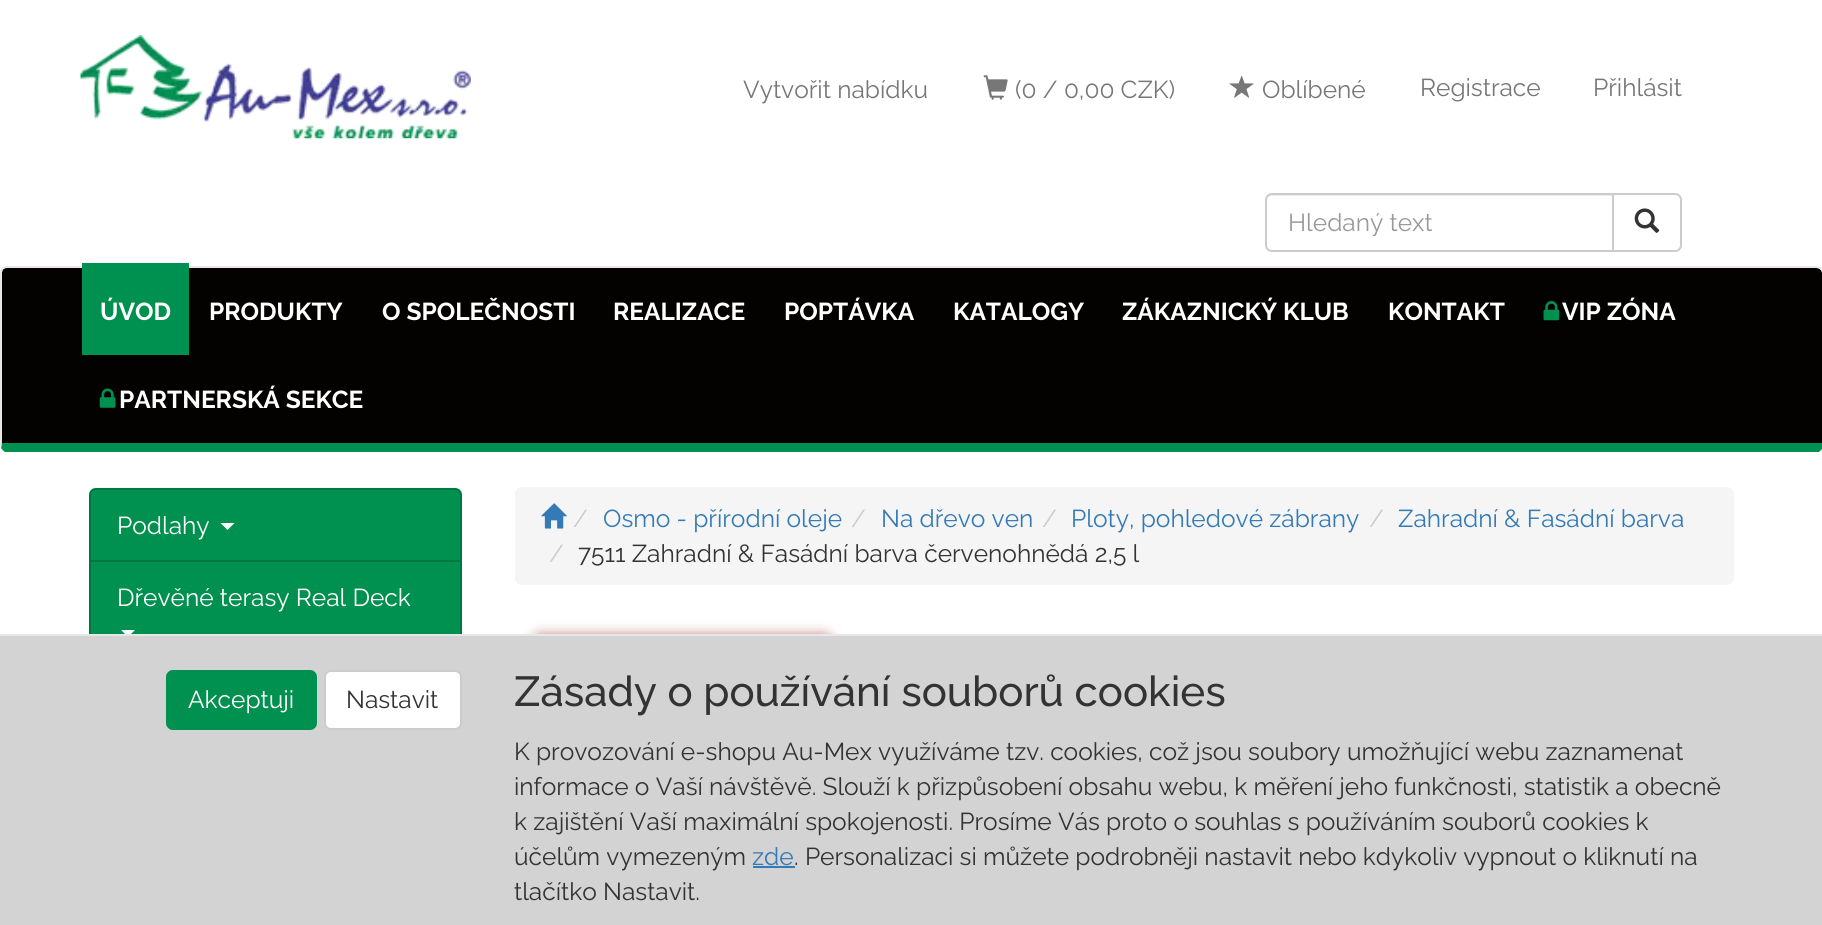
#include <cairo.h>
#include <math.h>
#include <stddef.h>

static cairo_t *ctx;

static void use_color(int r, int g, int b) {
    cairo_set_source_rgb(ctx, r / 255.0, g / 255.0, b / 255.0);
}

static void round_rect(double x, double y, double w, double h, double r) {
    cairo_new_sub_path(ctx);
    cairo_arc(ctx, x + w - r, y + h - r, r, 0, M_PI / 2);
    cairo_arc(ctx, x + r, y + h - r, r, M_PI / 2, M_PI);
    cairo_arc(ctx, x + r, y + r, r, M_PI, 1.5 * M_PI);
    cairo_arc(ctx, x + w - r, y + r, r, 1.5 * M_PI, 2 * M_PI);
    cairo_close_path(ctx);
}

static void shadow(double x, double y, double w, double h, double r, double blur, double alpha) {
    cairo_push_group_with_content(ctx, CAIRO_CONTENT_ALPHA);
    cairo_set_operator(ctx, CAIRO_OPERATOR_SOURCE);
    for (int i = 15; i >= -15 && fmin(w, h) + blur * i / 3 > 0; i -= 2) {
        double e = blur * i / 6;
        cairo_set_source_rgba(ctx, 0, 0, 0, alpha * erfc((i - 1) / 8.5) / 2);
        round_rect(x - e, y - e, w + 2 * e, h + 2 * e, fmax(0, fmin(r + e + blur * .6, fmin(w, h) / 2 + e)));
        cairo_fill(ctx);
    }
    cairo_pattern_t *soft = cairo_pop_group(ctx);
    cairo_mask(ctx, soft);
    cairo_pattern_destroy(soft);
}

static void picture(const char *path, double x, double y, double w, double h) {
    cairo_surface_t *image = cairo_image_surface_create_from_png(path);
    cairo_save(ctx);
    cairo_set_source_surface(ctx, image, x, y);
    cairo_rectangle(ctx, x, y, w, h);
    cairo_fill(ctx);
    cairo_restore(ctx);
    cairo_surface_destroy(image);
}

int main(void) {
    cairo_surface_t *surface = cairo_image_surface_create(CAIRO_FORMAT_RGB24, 1822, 925);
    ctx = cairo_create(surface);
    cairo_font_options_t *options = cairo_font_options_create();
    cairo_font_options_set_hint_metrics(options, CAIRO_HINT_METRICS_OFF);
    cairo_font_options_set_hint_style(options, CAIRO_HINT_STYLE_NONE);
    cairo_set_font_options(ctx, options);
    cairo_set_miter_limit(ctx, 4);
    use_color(255, 255, 255);
    cairo_paint(ctx);
    picture("img1.png", 80, 35, 391, 104);
    cairo_select_font_face(ctx, "Raleway", CAIRO_FONT_SLANT_NORMAL, CAIRO_FONT_WEIGHT_NORMAL);
    cairo_set_font_size(ctx, 24.5);
    use_color(119, 119, 119);
    cairo_move_to(ctx, 743, 98);
    cairo_show_text(ctx, "Vytvořit nabídku");
    picture("img2.png", 983, 75, 25, 25);
    cairo_move_to(ctx, 1015, 98);
    cairo_show_text(ctx, "(0 / 0,00 CZK)");
    picture("img3.png", 1229, 75, 25, 23);
    cairo_move_to(ctx, 1262, 98);
    cairo_show_text(ctx, "Oblíbené");
    cairo_move_to(ctx, 1420, 96);
    cairo_show_text(ctx, "Registrace");
    cairo_move_to(ctx, 1593, 96);
    cairo_show_text(ctx, "Přihlásit");
    cairo_new_path(ctx);
    cairo_move_to(ctx, 1613, 194);
    cairo_line_to(ctx, 1675, 194);
    cairo_curve_to(ctx, 1678.5, 194, 1681, 196.5, 1681, 200);
    cairo_line_to(ctx, 1681, 245);
    cairo_curve_to(ctx, 1681, 248.5, 1678.5, 251, 1675, 251);
    cairo_line_to(ctx, 1613, 251);
    cairo_close_path(ctx);
    use_color(204, 204, 204);
    cairo_stroke(ctx);
    use_color(255, 255, 255);
    cairo_new_path(ctx);
    cairo_move_to(ctx, 1272, 193);
    cairo_line_to(ctx, 1614, 193);
    cairo_line_to(ctx, 1614, 252);
    cairo_line_to(ctx, 1272, 252);
    cairo_curve_to(ctx, 1268, 252, 1265, 249, 1265, 245);
    cairo_line_to(ctx, 1265, 200);
    cairo_curve_to(ctx, 1265, 196, 1268, 193, 1272, 193);
    cairo_close_path(ctx);
    cairo_fill(ctx);
    use_color(236, 236, 236);
    cairo_new_path(ctx);
    cairo_move_to(ctx, 1272, 196);
    cairo_line_to(ctx, 1612, 196);
    cairo_line_to(ctx, 1612, 194);
    cairo_line_to(ctx, 1272, 194);
    cairo_curve_to(ctx, 1268, 194, 1267, 198, 1267, 201);
    cairo_curve_to(ctx, 1267, 198, 1269, 196, 1272, 196);
    cairo_close_path(ctx);
    cairo_fill(ctx);
    cairo_new_path(ctx);
    cairo_move_to(ctx, 1272, 194);
    cairo_line_to(ctx, 1613, 194);
    cairo_line_to(ctx, 1613, 251);
    cairo_line_to(ctx, 1272, 251);
    cairo_curve_to(ctx, 1268.5, 251, 1266, 248.5, 1266, 245);
    cairo_line_to(ctx, 1266, 200);
    cairo_curve_to(ctx, 1266, 196.5, 1268.5, 194, 1272, 194);
    cairo_close_path(ctx);
    use_color(204, 204, 204);
    cairo_stroke(ctx);
    cairo_save(ctx);
    cairo_rectangle(ctx, 1288, 208, 296, 28);
    cairo_clip(ctx);
    use_color(153, 153, 153);
    cairo_move_to(ctx, 1288, 231);
    cairo_show_text(ctx, "Hledaný text");
    cairo_restore(ctx);
    picture("img4.png", 1634, 208, 26, 25);
    use_color(4, 2, 0);
    cairo_new_path(ctx);
    cairo_move_to(ctx, 7, 268);
    cairo_line_to(ctx, 1816, 268);
    cairo_curve_to(ctx, 1819, 268, 1822, 270, 1822, 273);
    cairo_line_to(ctx, 1822, 443);
    cairo_line_to(ctx, 2, 443);
    cairo_line_to(ctx, 2, 273);
    cairo_curve_to(ctx, 2, 270, 4, 268, 7, 268);
    cairo_close_path(ctx);
    cairo_fill(ctx);
    use_color(231, 231, 231);
    cairo_new_path(ctx);
    cairo_move_to(ctx, 7, 266);
    cairo_curve_to(ctx, 5, 266, 3, 267, 2, 268);
    cairo_line_to(ctx, 3, 269);
    cairo_curve_to(ctx, 4, 268, 6, 268, 7, 268);
    cairo_line_to(ctx, 1816, 268);
    cairo_curve_to(ctx, 1818, 268, 1819, 268, 1820, 269);
    cairo_line_to(ctx, 1822, 268);
    cairo_curve_to(ctx, 1820, 267, 1818, 266, 1816, 266);
    cairo_close_path(ctx);
    cairo_fill(ctx);
    cairo_new_path(ctx);
    cairo_move_to(ctx, 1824, 447);
    cairo_line_to(ctx, 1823, 448);
    cairo_line_to(ctx, 1822, 443);
    cairo_line_to(ctx, 1822, 273);
    cairo_curve_to(ctx, 1822, 272, 1821, 270, 1820, 269);
    cairo_line_to(ctx, 1822, 268);
    cairo_line_to(ctx, 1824, 271);
    cairo_close_path(ctx);
    cairo_fill(ctx);
    use_color(0, 144, 79);
    cairo_new_path(ctx);
    cairo_move_to(ctx, 5, 452);
    cairo_curve_to(ctx, 3, 451, 2, 449, 1, 448);
    cairo_line_to(ctx, 2, 442);
    cairo_line_to(ctx, 2, 443);
    cairo_line_to(ctx, 1822, 443);
    cairo_line_to(ctx, 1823, 448);
    cairo_curve_to(ctx, 1822, 449, 1820, 451, 1819, 452);
    cairo_close_path(ctx);
    cairo_fill(ctx);
    use_color(231, 231, 231);
    cairo_new_path(ctx);
    cairo_move_to(ctx, 0, 273);
    cairo_line_to(ctx, 0, 444);
    cairo_line_to(ctx, 1, 448);
    cairo_line_to(ctx, 2, 442);
    cairo_line_to(ctx, 2, 273);
    cairo_curve_to(ctx, 2, 272, 2, 270, 3, 269);
    cairo_line_to(ctx, 2, 268);
    cairo_curve_to(ctx, 1, 269, 0, 271, 0, 273);
    cairo_close_path(ctx);
    cairo_fill(ctx);
    use_color(0, 144, 79);
    cairo_rectangle(ctx, 82, 263, 107, 92);
    cairo_fill(ctx);
    cairo_select_font_face(ctx, "Raleway", CAIRO_FONT_SLANT_NORMAL, CAIRO_FONT_WEIGHT_BOLD);
    use_color(255, 255, 255);
    cairo_move_to(ctx, 100, 320);
    cairo_show_text(ctx, "ÚVOD");
    cairo_move_to(ctx, 209, 320);
    cairo_show_text(ctx, "PRODUKTY");
    cairo_move_to(ctx, 382, 320);
    cairo_show_text(ctx, "O SPOLEČNOSTI");
    cairo_move_to(ctx, 613, 320);
    cairo_show_text(ctx, "REALIZACE");
    cairo_move_to(ctx, 784, 320);
    cairo_show_text(ctx, "POPTÁVKA");
    cairo_move_to(ctx, 953, 320);
    cairo_show_text(ctx, "KATALOGY");
    cairo_move_to(ctx, 1122, 320);
    cairo_show_text(ctx, "ZÁKAZNICKÝ KLUB");
    cairo_move_to(ctx, 1388, 320);
    cairo_show_text(ctx, "KONTAKT");
    picture("img5.png", 1543, 301, 17, 20);
    cairo_move_to(ctx, 1562, 320);
    cairo_show_text(ctx, "VIP ZÓNA");
    picture("img6.png", 99, 388, 17, 20);
    cairo_move_to(ctx, 119, 408);
    cairo_show_text(ctx, "PARTNERSKÁ SEKCE");
    use_color(248, 248, 248);
    round_rect(89, 487, 373, 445, 7);
    cairo_fill(ctx);
    use_color(0, 144, 79);
    cairo_new_path(ctx);
    cairo_move_to(ctx, 96, 489);
    cairo_line_to(ctx, 455, 489);
    cairo_curve_to(ctx, 458.5, 489, 461, 491.5, 461, 495);
    cairo_line_to(ctx, 461, 561);
    cairo_line_to(ctx, 90, 561);
    cairo_line_to(ctx, 90, 495);
    cairo_curve_to(ctx, 90, 491.5, 92.5, 489, 96, 489);
    cairo_close_path(ctx);
    cairo_fill_preserve(ctx);
    use_color(0, 119, 65);
    cairo_stroke(ctx);
    cairo_select_font_face(ctx, "Raleway", CAIRO_FONT_SLANT_NORMAL, CAIRO_FONT_WEIGHT_NORMAL);
    use_color(255, 255, 255);
    cairo_move_to(ctx, 117, 534);
    cairo_show_text(ctx, "Podlahy");
    cairo_new_path(ctx);
    cairo_move_to(ctx, 220.5, 523);
    cairo_line_to(ctx, 234.5, 523);
    cairo_line_to(ctx, 227.5, 530);
    cairo_close_path(ctx);
    cairo_fill(ctx);
    use_color(0, 144, 79);
    cairo_rectangle(ctx, 91, 562, 369, 72);
    cairo_fill(ctx);
    cairo_rectangle(ctx, 90, 561, 371, 107);
    use_color(0, 119, 65);
    cairo_stroke(ctx);
    use_color(255, 255, 255);
    cairo_move_to(ctx, 117, 606);
    cairo_show_text(ctx, "Dřevěné terasy Real Deck");
    cairo_new_path(ctx);
    cairo_move_to(ctx, 121, 630);
    cairo_line_to(ctx, 135, 630);
    cairo_line_to(ctx, 128, 637);
    cairo_close_path(ctx);
    cairo_fill(ctx);
    use_color(245, 245, 245);
    round_rect(515, 487, 1219, 98, 7);
    cairo_fill(ctx);
    picture("img7.png", 541, 503, 26, 26);
    use_color(204, 204, 204);
    cairo_move_to(ctx, 573, 527);
    cairo_show_text(ctx, "/");
    use_color(51, 122, 183);
    cairo_move_to(ctx, 603, 527);
    cairo_show_text(ctx, "Osmo - přírodní oleje");
    use_color(204, 204, 204);
    cairo_move_to(ctx, 851, 527);
    cairo_show_text(ctx, "/");
    use_color(51, 122, 183);
    cairo_move_to(ctx, 881, 527);
    cairo_show_text(ctx, "Na dřevo ven");
    use_color(204, 204, 204);
    cairo_move_to(ctx, 1042, 527);
    cairo_show_text(ctx, "/");
    use_color(51, 122, 183);
    cairo_move_to(ctx, 1071, 527);
    cairo_show_text(ctx, "Ploty, pohledové zábrany");
    use_color(204, 204, 204);
    cairo_move_to(ctx, 1369, 527);
    cairo_show_text(ctx, "/");
    use_color(51, 122, 183);
    cairo_move_to(ctx, 1398, 527);
    cairo_show_text(ctx, "Zahradní & Fasádní barva");
    use_color(204, 204, 204);
    cairo_move_to(ctx, 549, 562);
    cairo_show_text(ctx, "/");
    use_color(51, 51, 51);
    cairo_move_to(ctx, 578, 562);
    cairo_show_text(ctx, "7511 Zahradní & Fasádní barva červenohnědá 2,5 l");
    use_color(169, 68, 66);
    shadow(534, 637, 297, 140, 7, 7, 1);
    use_color(211, 211, 211);
    cairo_rectangle(ctx, 0, 636, 1822, 289);
    cairo_fill(ctx);
    use_color(231, 231, 231);
    cairo_rectangle(ctx, 0, 634, 1822, 2);
    cairo_fill(ctx);
    use_color(0, 144, 79);
    round_rect(167, 671, 149, 58, 6);
    cairo_fill_preserve(ctx);
    cairo_stroke(ctx);
    use_color(255, 255, 255);
    cairo_move_to(ctx, 188, 708);
    cairo_show_text(ctx, "Akceptuji");
    round_rect(325, 671, 136, 58, 6);
    cairo_fill_preserve(ctx);
    use_color(204, 204, 204);
    cairo_stroke(ctx);
    use_color(51, 51, 51);
    cairo_move_to(ctx, 346, 708);
    cairo_show_text(ctx, "Nastavit");
    cairo_select_font_face(ctx, "Raleway Medium", CAIRO_FONT_SLANT_NORMAL, CAIRO_FONT_WEIGHT_NORMAL);
    cairo_set_font_size(ctx, 42);
    cairo_move_to(ctx, 514, 706);
    cairo_show_text(ctx, "Zásady o používání souborů cookies");
    cairo_select_font_face(ctx, "Raleway", CAIRO_FONT_SLANT_NORMAL, CAIRO_FONT_WEIGHT_NORMAL);
    cairo_set_font_size(ctx, 24.5);
    cairo_move_to(ctx, 514, 760);
    cairo_show_text(ctx, "K provozování e-shopu Au-Mex využíváme tzv. cookies, což jsou soubory umožňující webu zaznamenat");
    cairo_move_to(ctx, 514, 795);
    cairo_show_text(ctx, "informace o Vaší návštěvě. Slouží k přizpůsobení obsahu webu, k měření jeho funkčnosti, statistik a obecně");
    cairo_move_to(ctx, 514, 830);
    cairo_show_text(ctx, "k zajištění Vaší maximální spokojenosti. Prosíme Vás proto o souhlas s používáním souborů cookies k");
    cairo_move_to(ctx, 514, 865);
    cairo_show_text(ctx, "účelům vymezeným");
    use_color(51, 122, 183);
    cairo_move_to(ctx, 752, 865);
    cairo_show_text(ctx, "zde");
    cairo_rectangle(ctx, 753, 866, 42, 2);
    cairo_fill(ctx);
    use_color(51, 51, 51);
    cairo_move_to(ctx, 794, 865);
    cairo_show_text(ctx, ". Personalizaci si můžete podrobněji nastavit nebo kdykoliv vypnout o kliknutí na");
    cairo_move_to(ctx, 514, 900);
    cairo_show_text(ctx, "tlačítko Nastavit.");
    cairo_surface_write_to_png(surface, "result.png");
    cairo_font_options_destroy(options);
    cairo_destroy(ctx);
    cairo_surface_destroy(surface);
    return 0;
}
